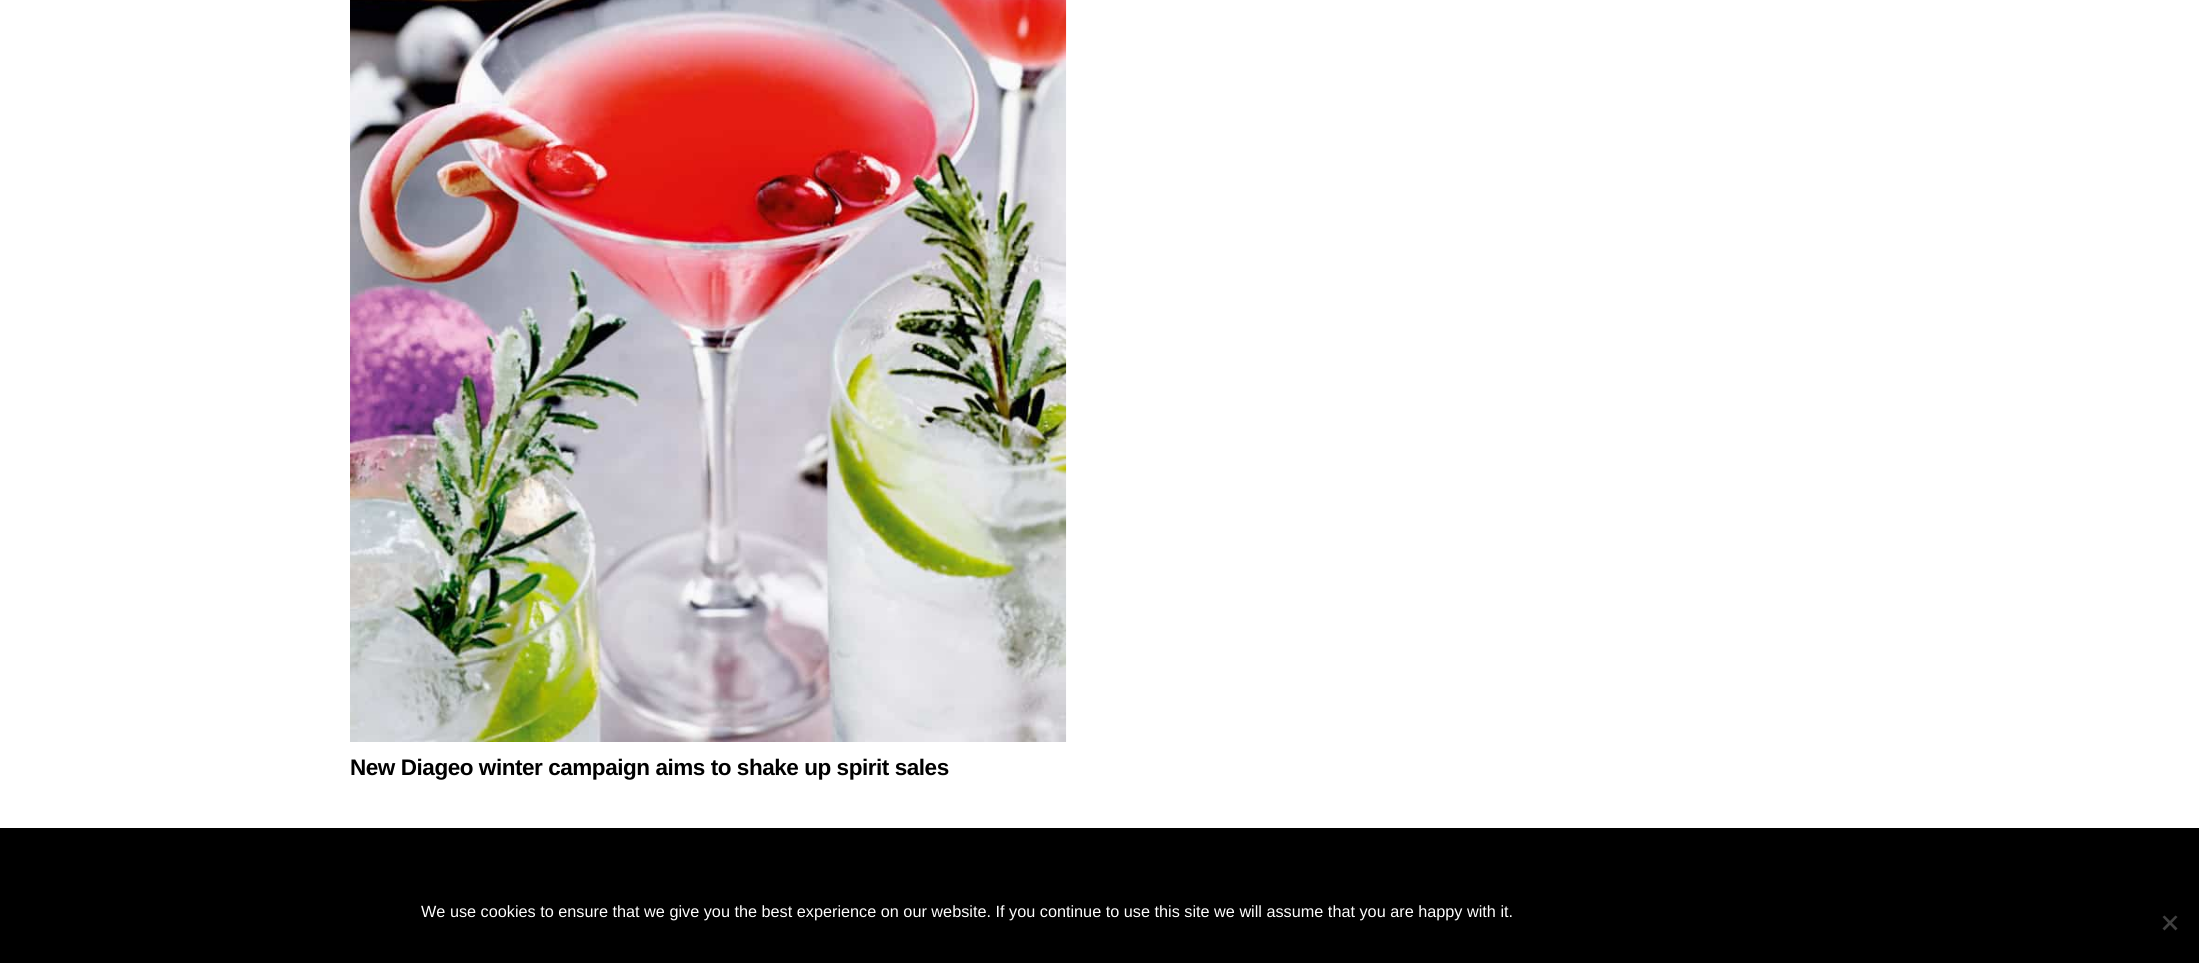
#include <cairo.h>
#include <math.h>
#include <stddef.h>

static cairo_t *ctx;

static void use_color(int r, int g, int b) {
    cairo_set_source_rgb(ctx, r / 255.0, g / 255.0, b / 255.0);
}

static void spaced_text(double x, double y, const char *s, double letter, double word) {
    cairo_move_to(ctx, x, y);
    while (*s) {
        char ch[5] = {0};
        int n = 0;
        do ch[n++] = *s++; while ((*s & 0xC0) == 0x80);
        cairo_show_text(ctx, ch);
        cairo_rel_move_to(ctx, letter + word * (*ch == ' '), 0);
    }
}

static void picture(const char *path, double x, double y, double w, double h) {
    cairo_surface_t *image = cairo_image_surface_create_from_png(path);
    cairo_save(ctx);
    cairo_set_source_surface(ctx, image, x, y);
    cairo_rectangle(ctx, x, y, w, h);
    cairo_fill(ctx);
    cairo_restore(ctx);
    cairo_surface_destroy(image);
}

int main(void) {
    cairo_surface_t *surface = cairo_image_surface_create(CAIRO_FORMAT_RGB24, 2199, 963);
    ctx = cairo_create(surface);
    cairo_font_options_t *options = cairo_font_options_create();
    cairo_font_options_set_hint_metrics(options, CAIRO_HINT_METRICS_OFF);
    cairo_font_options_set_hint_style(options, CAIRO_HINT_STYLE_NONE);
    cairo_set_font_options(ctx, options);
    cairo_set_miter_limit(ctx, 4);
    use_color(255, 255, 255);
    cairo_paint(ctx);
    picture("img1.png", 350, 0, 717, 742);
    cairo_select_font_face(ctx, "Liberation Sans", CAIRO_FONT_SLANT_NORMAL, CAIRO_FONT_WEIGHT_BOLD);
    cairo_set_font_size(ctx, 22.5);
    use_color(0, 0, 0);
    spaced_text(350, 775, "New Diageo winter campaign aims to shake up spirit sales", -0.45, 0);
    cairo_rectangle(ctx, 0, 828, 2199, 135);
    cairo_fill(ctx);
    cairo_select_font_face(ctx, "Liberation Sans", CAIRO_FONT_SLANT_NORMAL, CAIRO_FONT_WEIGHT_NORMAL);
    cairo_set_font_size(ctx, 16.25);
    use_color(255, 255, 255);
    cairo_move_to(ctx, 421, 917);
    cairo_show_text(ctx, "We use cookies to ensure that we give you the best experience on our website. If you continue to use this site we will assume that you are happy with it.");
    use_color(64, 64, 64);
    cairo_new_path(ctx);
    cairo_move_to(ctx, 2175.5, 915.5);
    cairo_line_to(ctx, 2177.5, 917);
    cairo_line_to(ctx, 2164.5, 930.5);
    cairo_line_to(ctx, 2162.5, 928.5);
    cairo_close_path(ctx);
    cairo_fill(ctx);
    cairo_new_path(ctx);
    cairo_move_to(ctx, 2162.5, 917);
    cairo_line_to(ctx, 2164.5, 915.5);
    cairo_line_to(ctx, 2177.5, 928.5);
    cairo_line_to(ctx, 2175.5, 930.5);
    cairo_close_path(ctx);
    cairo_fill(ctx);
    cairo_surface_write_to_png(surface, "result.png");
    cairo_font_options_destroy(options);
    cairo_destroy(ctx);
    cairo_surface_destroy(surface);
    return 0;
}
